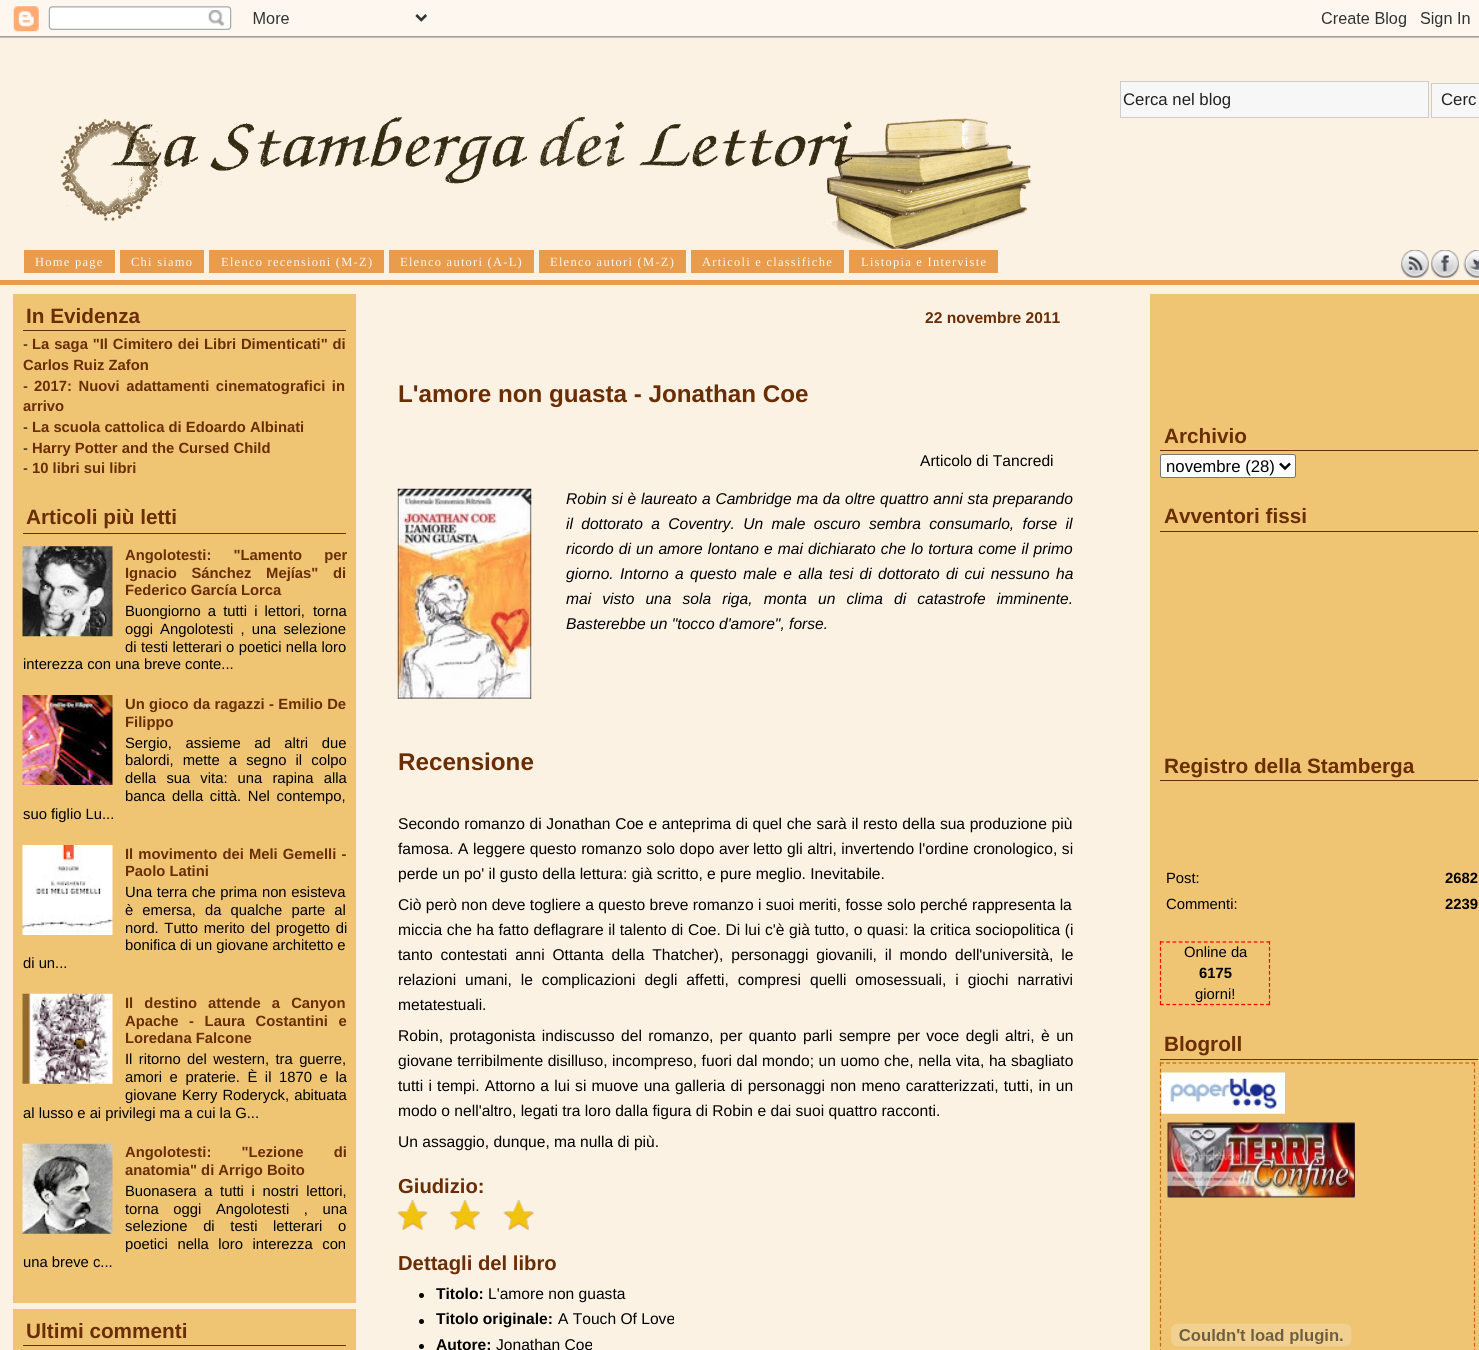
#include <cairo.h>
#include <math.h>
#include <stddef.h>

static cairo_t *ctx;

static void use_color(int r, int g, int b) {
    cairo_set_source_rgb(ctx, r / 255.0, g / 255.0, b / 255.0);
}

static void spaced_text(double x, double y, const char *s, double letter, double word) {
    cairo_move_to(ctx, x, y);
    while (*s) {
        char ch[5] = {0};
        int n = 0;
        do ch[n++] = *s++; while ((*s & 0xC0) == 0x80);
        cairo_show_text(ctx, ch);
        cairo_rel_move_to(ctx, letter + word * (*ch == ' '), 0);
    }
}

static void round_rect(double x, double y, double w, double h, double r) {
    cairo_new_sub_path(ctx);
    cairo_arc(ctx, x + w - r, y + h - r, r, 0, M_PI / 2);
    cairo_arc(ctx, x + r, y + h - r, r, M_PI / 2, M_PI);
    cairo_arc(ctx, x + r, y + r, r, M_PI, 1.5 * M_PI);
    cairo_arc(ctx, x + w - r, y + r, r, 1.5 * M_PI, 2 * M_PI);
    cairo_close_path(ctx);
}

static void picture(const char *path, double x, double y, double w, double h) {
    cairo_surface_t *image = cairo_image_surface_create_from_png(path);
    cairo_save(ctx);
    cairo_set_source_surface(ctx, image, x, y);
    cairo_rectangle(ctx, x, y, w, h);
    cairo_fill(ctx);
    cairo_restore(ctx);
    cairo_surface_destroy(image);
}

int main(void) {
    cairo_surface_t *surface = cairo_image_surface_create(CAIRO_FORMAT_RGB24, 1479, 1350);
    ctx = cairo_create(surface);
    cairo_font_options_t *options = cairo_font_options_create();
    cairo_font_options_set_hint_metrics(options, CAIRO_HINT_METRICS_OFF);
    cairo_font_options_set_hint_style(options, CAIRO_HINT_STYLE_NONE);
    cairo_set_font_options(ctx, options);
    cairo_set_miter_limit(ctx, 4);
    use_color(251, 242, 228);
    cairo_paint(ctx);
    picture("img1.png", 0, 0, 1479, 38);
    use_color(247, 247, 247);
    cairo_rectangle(ctx, 1120.5, 81.5, 308, 36);
    cairo_fill_preserve(ctx);
    use_color(204, 204, 204);
    cairo_set_line_width(ctx, 1);
    cairo_stroke(ctx);
    cairo_select_font_face(ctx, "Liberation Sans", CAIRO_FONT_SLANT_NORMAL, CAIRO_FONT_WEIGHT_NORMAL);
    cairo_set_font_size(ctx, 16.75);
    use_color(34, 34, 34);
    cairo_move_to(ctx, 1123, 105);
    cairo_show_text(ctx, "Cerca nel blog");
    use_color(247, 247, 247);
    cairo_rectangle(ctx, 1431.5, 83.5, 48, 34);
    cairo_fill_preserve(ctx);
    use_color(204, 204, 204);
    cairo_stroke(ctx);
    use_color(34, 34, 34);
    cairo_move_to(ctx, 1441, 105);
    cairo_show_text(ctx, "Cerc");
    picture("img2.png", 59, 117, 972, 133);
    use_color(233, 156, 76);
    cairo_rectangle(ctx, 24, 250, 91, 23);
    cairo_fill(ctx);
    cairo_select_font_face(ctx, "Liberation Serif", CAIRO_FONT_SLANT_NORMAL, CAIRO_FONT_WEIGHT_NORMAL);
    cairo_set_font_size(ctx, 12.5);
    use_color(247, 247, 247);
    spaced_text(35, 266, "Home page", 1.25, 0);
    use_color(233, 156, 76);
    cairo_rectangle(ctx, 120, 250, 84, 23);
    cairo_fill(ctx);
    use_color(247, 247, 247);
    spaced_text(131, 266, "Chi siamo", 1.25, 0);
    use_color(233, 156, 76);
    cairo_rectangle(ctx, 209, 250, 175, 23);
    cairo_fill(ctx);
    use_color(247, 247, 247);
    spaced_text(221, 266, "Elenco recensioni (M-Z)", 1.25, 0);
    use_color(233, 156, 76);
    cairo_rectangle(ctx, 389, 250, 145, 23);
    cairo_fill(ctx);
    use_color(247, 247, 247);
    spaced_text(400, 266, "Elenco autori (A-L)", 1.25, 0);
    use_color(233, 156, 76);
    cairo_rectangle(ctx, 539, 250, 147, 23);
    cairo_fill(ctx);
    use_color(247, 247, 247);
    spaced_text(550, 266, "Elenco autori (M-Z)", 1.25, 0);
    use_color(233, 156, 76);
    cairo_rectangle(ctx, 691, 250, 153, 23);
    cairo_fill(ctx);
    use_color(247, 247, 247);
    spaced_text(702, 266, "Articoli e classifiche", 1.25, 0);
    use_color(233, 156, 76);
    cairo_rectangle(ctx, 849, 250, 149, 23);
    cairo_fill(ctx);
    use_color(247, 247, 247);
    spaced_text(861, 266, "Listopia e Interviste", 1.25, 0);
    picture("img3.png", 1400, 250, 29, 28);
    picture("img4.png", 1431, 250, 29, 28);
    picture("img5.png", 1463, 250, 16, 28);
    use_color(233, 156, 76);
    cairo_rectangle(ctx, 0, 280, 1479, 5);
    cairo_fill(ctx);
    use_color(239, 197, 116);
    cairo_rectangle(ctx, 13, 294, 343, 1009);
    cairo_fill(ctx);
    use_color(106, 45, 4);
    cairo_rectangle(ctx, 23, 330, 323, 1);
    cairo_fill(ctx);
    cairo_select_font_face(ctx, "Liberation Sans", CAIRO_FONT_SLANT_NORMAL, CAIRO_FONT_WEIGHT_BOLD);
    cairo_set_font_size(ctx, 20.75);
    cairo_move_to(ctx, 26, 323);
    cairo_show_text(ctx, "In Evidenza");
    cairo_select_font_face(ctx, "Liberation Sans", CAIRO_FONT_SLANT_NORMAL, CAIRO_FONT_WEIGHT_NORMAL);
    cairo_set_font_size(ctx, 14.8);
    use_color(0, 0, 0);
    cairo_move_to(ctx, 23, 349);
    cairo_show_text(ctx, "-");
    cairo_select_font_face(ctx, "Liberation Sans", CAIRO_FONT_SLANT_NORMAL, CAIRO_FONT_WEIGHT_BOLD);
    use_color(106, 45, 4);
    spaced_text(32, 349, "La saga \"Il Cimitero dei Libri Dimenticati\" di", 0, 0.75);
    cairo_move_to(ctx, 23, 370);
    cairo_show_text(ctx, "Carlos Ruiz Zafon");
    cairo_select_font_face(ctx, "Liberation Sans", CAIRO_FONT_SLANT_NORMAL, CAIRO_FONT_WEIGHT_NORMAL);
    use_color(0, 0, 0);
    cairo_move_to(ctx, 23, 391);
    cairo_show_text(ctx, "-");
    cairo_select_font_face(ctx, "Liberation Sans", CAIRO_FONT_SLANT_NORMAL, CAIRO_FONT_WEIGHT_BOLD);
    use_color(106, 45, 4);
    spaced_text(34, 391, "2017: Nuovi adattamenti cinematografici in", 0, 2.5);
    cairo_move_to(ctx, 23, 411);
    cairo_show_text(ctx, "arrivo");
    cairo_select_font_face(ctx, "Liberation Sans", CAIRO_FONT_SLANT_NORMAL, CAIRO_FONT_WEIGHT_NORMAL);
    use_color(0, 0, 0);
    cairo_move_to(ctx, 23, 432);
    cairo_show_text(ctx, "-");
    cairo_select_font_face(ctx, "Liberation Sans", CAIRO_FONT_SLANT_NORMAL, CAIRO_FONT_WEIGHT_BOLD);
    use_color(106, 45, 4);
    cairo_move_to(ctx, 32, 432);
    cairo_show_text(ctx, "La scuola cattolica di Edoardo Albinati");
    cairo_select_font_face(ctx, "Liberation Sans", CAIRO_FONT_SLANT_NORMAL, CAIRO_FONT_WEIGHT_NORMAL);
    use_color(0, 0, 0);
    cairo_move_to(ctx, 23, 453);
    cairo_show_text(ctx, "-");
    cairo_select_font_face(ctx, "Liberation Sans", CAIRO_FONT_SLANT_NORMAL, CAIRO_FONT_WEIGHT_BOLD);
    use_color(106, 45, 4);
    cairo_move_to(ctx, 32, 453);
    cairo_show_text(ctx, "Harry Potter and the Cursed Child");
    cairo_select_font_face(ctx, "Liberation Sans", CAIRO_FONT_SLANT_NORMAL, CAIRO_FONT_WEIGHT_NORMAL);
    use_color(0, 0, 0);
    cairo_move_to(ctx, 23, 473);
    cairo_show_text(ctx, "-");
    cairo_select_font_face(ctx, "Liberation Sans", CAIRO_FONT_SLANT_NORMAL, CAIRO_FONT_WEIGHT_BOLD);
    use_color(106, 45, 4);
    cairo_move_to(ctx, 32, 473);
    cairo_show_text(ctx, "10 libri sui libri");
    cairo_rectangle(ctx, 23, 533, 323, 1);
    cairo_fill(ctx);
    cairo_set_font_size(ctx, 20.75);
    cairo_move_to(ctx, 26, 524);
    cairo_show_text(ctx, "Articoli più letti");
    picture("img6.png", 22, 546, 91, 91);
    cairo_set_font_size(ctx, 14.8);
    spaced_text(125, 560, "Angolotesti: \"Lamento per", 0, 18);
    spaced_text(125, 578, "Ignacio Sánchez Mejías\" di", 0, 10.5);
    cairo_move_to(ctx, 125, 595);
    cairo_show_text(ctx, "Federico García Lorca");
    cairo_select_font_face(ctx, "Liberation Sans", CAIRO_FONT_SLANT_NORMAL, CAIRO_FONT_WEIGHT_NORMAL);
    use_color(0, 0, 0);
    spaced_text(125, 616, "Buongiorno a tutti i lettori,", 0, 3);
    cairo_move_to(ctx, 313, 616);
    cairo_show_text(ctx, "torna");
    spaced_text(125, 634, "oggi Angolotesti , una selezione", 0, 3);
    spaced_text(125, 652, "di testi letterari o poetici nella loro", 0, 0.25);
    cairo_move_to(ctx, 23, 669);
    cairo_show_text(ctx, "interezza con una breve conte...");
    picture("img7.png", 22, 695, 91, 90);
    cairo_select_font_face(ctx, "Liberation Sans", CAIRO_FONT_SLANT_NORMAL, CAIRO_FONT_WEIGHT_BOLD);
    use_color(106, 45, 4);
    spaced_text(125, 709, "Un gioco da ragazzi - Emilio De", 0, 0.25);
    cairo_move_to(ctx, 125, 727);
    cairo_show_text(ctx, "Filippo");
    cairo_select_font_face(ctx, "Liberation Sans", CAIRO_FONT_SLANT_NORMAL, CAIRO_FONT_WEIGHT_NORMAL);
    use_color(0, 0, 0);
    spaced_text(125, 748, "Sergio, assieme ad altri due", 0, 9.5);
    spaced_text(125, 765, "balordi, mette a segno il colpo", 0, 5);
    spaced_text(125, 783, "della sua vita: una rapina alla", 0, 6);
    spaced_text(125, 801, "banca della città. Nel contempo,", 0, 2.5);
    cairo_move_to(ctx, 23, 819);
    cairo_show_text(ctx, "suo figlio Lu...");
    picture("img8.png", 22, 845, 91, 90);
    cairo_select_font_face(ctx, "Liberation Sans", CAIRO_FONT_SLANT_NORMAL, CAIRO_FONT_WEIGHT_BOLD);
    use_color(106, 45, 4);
    spaced_text(125, 859, "Il movimento dei Meli Gemelli -", 0, 1);
    cairo_move_to(ctx, 125, 876);
    cairo_show_text(ctx, "Paolo Latini");
    cairo_select_font_face(ctx, "Liberation Sans", CAIRO_FONT_SLANT_NORMAL, CAIRO_FONT_WEIGHT_NORMAL);
    use_color(0, 0, 0);
    spaced_text(125, 897, "Una terra che prima non esisteva", 0, 0.5);
    spaced_text(125, 915, "è emersa, da qualche parte al", 0, 5);
    spaced_text(125, 933, "nord. Tutto merito del progetto di", 0, 1.5);
    cairo_move_to(ctx, 125, 950);
    cairo_show_text(ctx, "bonifica di un giovane architetto e");
    cairo_move_to(ctx, 23, 968);
    cairo_show_text(ctx, "di un...");
    picture("img9.png", 22, 993, 91, 91);
    cairo_select_font_face(ctx, "Liberation Sans", CAIRO_FONT_SLANT_NORMAL, CAIRO_FONT_WEIGHT_BOLD);
    use_color(106, 45, 4);
    spaced_text(125, 1008, "Il destino attende a Canyon", 0, 7);
    spaced_text(125, 1026, "Apache - Laura Costantini e", 0, 6.5);
    cairo_move_to(ctx, 125, 1043);
    cairo_show_text(ctx, "Loredana Falcone");
    cairo_select_font_face(ctx, "Liberation Sans", CAIRO_FONT_SLANT_NORMAL, CAIRO_FONT_WEIGHT_NORMAL);
    use_color(0, 0, 0);
    spaced_text(125, 1064, "Il ritorno del western, tra guerre,", 0, 2.25);
    spaced_text(125, 1082, "amori e praterie. È il 1870 e la", 0, 3.5);
    spaced_text(125, 1100, "giovane Kerry Roderyck, abituata", 0, 1);
    cairo_move_to(ctx, 23, 1118);
    cairo_show_text(ctx, "al lusso e ai privilegi ma a cui la G...");
    picture("img10.png", 22, 1143, 91, 91);
    cairo_select_font_face(ctx, "Liberation Sans", CAIRO_FONT_SLANT_NORMAL, CAIRO_FONT_WEIGHT_BOLD);
    use_color(106, 45, 4);
    spaced_text(125, 1157, "Angolotesti: \"Lezione di", 0, 26);
    cairo_move_to(ctx, 125, 1175);
    cairo_show_text(ctx, "anatomia\" di Arrigo Boito");
    cairo_select_font_face(ctx, "Liberation Sans", CAIRO_FONT_SLANT_NORMAL, CAIRO_FONT_WEIGHT_NORMAL);
    use_color(0, 0, 0);
    spaced_text(125, 1196, "Buonasera a tutti i nostri lettori,", 0, 3.5);
    spaced_text(125, 1214, "torna oggi Angolotesti , una", 0, 10.5);
    spaced_text(125, 1231, "selezione di testi letterari o", 0, 11.5);
    spaced_text(125, 1249, "poetici nella loro interezza con", 0, 5.5);
    cairo_move_to(ctx, 23, 1267);
    cairo_show_text(ctx, "una breve c...");
    use_color(239, 197, 116);
    cairo_rectangle(ctx, 13, 1309, 343, 41);
    cairo_fill(ctx);
    use_color(106, 45, 4);
    cairo_rectangle(ctx, 23, 1345, 323, 1);
    cairo_fill(ctx);
    cairo_select_font_face(ctx, "Liberation Sans", CAIRO_FONT_SLANT_NORMAL, CAIRO_FONT_WEIGHT_BOLD);
    cairo_set_font_size(ctx, 20.75);
    cairo_move_to(ctx, 26, 1338);
    cairo_show_text(ctx, "Ultimi commenti");
    cairo_set_font_size(ctx, 15.6);
    cairo_move_to(ctx, 925, 323);
    cairo_show_text(ctx, "22 novembre 2011");
    cairo_set_font_size(ctx, 24.2);
    cairo_move_to(ctx, 398, 402);
    cairo_show_text(ctx, "L'amore non guasta - Jonathan Coe");
    cairo_select_font_face(ctx, "Liberation Sans", CAIRO_FONT_SLANT_NORMAL, CAIRO_FONT_WEIGHT_NORMAL);
    cairo_set_font_size(ctx, 15.6);
    use_color(0, 0, 0);
    cairo_move_to(ctx, 920, 466);
    cairo_show_text(ctx, "Articolo di Tancredi");
    picture("img11.png", 397, 488, 135, 211);
    cairo_select_font_face(ctx, "Liberation Sans", CAIRO_FONT_SLANT_ITALIC, CAIRO_FONT_WEIGHT_NORMAL);
    spaced_text(566, 504, "Robin si è laureato a Cambridge ma da oltre quattro anni sta preparando", 0, 0.4);
    spaced_text(566, 529, "il dottorato a Coventry. Un male oscuro sembra consumarlo, forse il", 0, 4);
    spaced_text(566, 554, "ricordo di un amore lontano e mai dichiarato che lo tortura come il primo", 0, 0.75);
    spaced_text(566, 579, "giorno. Intorno a questo male e alla tesi di dottorato di cui nessuno ha", 0, 2);
    spaced_text(566, 604, "mai visto una sola riga, monta un clima di catastrofe imminente.", 0, 6.75);
    cairo_move_to(ctx, 566, 629);
    cairo_show_text(ctx, "Basterebbe un \"tocco d'amore\", forse.");
    cairo_select_font_face(ctx, "Liberation Sans", CAIRO_FONT_SLANT_NORMAL, CAIRO_FONT_WEIGHT_BOLD);
    cairo_set_font_size(ctx, 24.2);
    use_color(106, 45, 4);
    cairo_move_to(ctx, 398, 770);
    cairo_show_text(ctx, "Recensione");
    cairo_select_font_face(ctx, "Liberation Sans", CAIRO_FONT_SLANT_NORMAL, CAIRO_FONT_WEIGHT_NORMAL);
    cairo_set_font_size(ctx, 15.6);
    use_color(0, 0, 0);
    spaced_text(398, 829, "Secondo romanzo di Jonathan Coe e anteprima di quel che sarà il resto della sua produzione più", 0, 0.3);
    spaced_text(398, 854, "famosa. A leggere questo romanzo solo dopo aver", 0, 0.25);
    spaced_text(753, 854, "letto gli altri, invertendo l'ordine cronologico, si", 0, 0.25);
    cairo_move_to(ctx, 398, 879);
    cairo_show_text(ctx, "perde un po' il gusto della lettura: già scritto, e pure meglio. Inevitabile.");
    cairo_move_to(ctx, 398, 910);
    cairo_show_text(ctx, "Ciò però non deve togliere a questo breve romanzo i suoi meriti, fosse solo perché rappresenta la");
    spaced_text(398, 935, "miccia che ha fatto deflagrare il talento di Coe. Di lui c'è già tutto, o quasi: la critica sociopolitica (i", 0, 0.25);
    spaced_text(398, 960, "tanto contestati anni Ottanta della Thatcher), personaggi giovanili, il mondo dell'università, le", 0, 3.5);
    spaced_text(398, 985, "relazioni umani, le complicazioni degli affetti, compresi quelli omosessuali, i giochi narrativi", 0, 4.6);
    cairo_move_to(ctx, 398, 1010);
    cairo_show_text(ctx, "metatestuali.");
    spaced_text(398, 1041, "Robin, protagonista indiscusso del romanzo, per quanto parli sempre per voce degli altri, è un", 0, 2.1);
    spaced_text(398, 1066, "giovane terribilmente disilluso, incompreso, fuori dal mondo; un uomo che, nella vita, ha sbagliato", 0, 0.25);
    spaced_text(398, 1091, "tutti i tempi. Attorno a lui si muove una galleria di personaggi non meno caratterizzati, tutti, in un", 0, 0.9);
    cairo_move_to(ctx, 398, 1116);
    cairo_show_text(ctx, "modo o nell'altro, legati tra loro dalla figura di Robin e dai suoi quattro racconti.");
    cairo_move_to(ctx, 398, 1147);
    cairo_show_text(ctx, "Un assaggio, dunque, ma nulla di più.");
    cairo_select_font_face(ctx, "Liberation Sans", CAIRO_FONT_SLANT_NORMAL, CAIRO_FONT_WEIGHT_BOLD);
    cairo_set_font_size(ctx, 20.25);
    use_color(106, 45, 4);
    cairo_move_to(ctx, 398, 1193);
    cairo_show_text(ctx, "Giudizio:");
    picture("img12.png", 397, 1200, 31, 30);
    picture("img13.png", 450, 1200, 30, 30);
    picture("img14.png", 503, 1200, 31, 30);
    cairo_move_to(ctx, 398, 1270);
    cairo_show_text(ctx, "Dettagli del libro");
    use_color(0, 0, 0);
    cairo_new_path(ctx);
    cairo_arc(ctx, 421.5, 1295.5, 2.5, 0, 2 * M_PI);
    cairo_fill(ctx);
    cairo_set_font_size(ctx, 15.6);
    cairo_move_to(ctx, 436, 1299);
    cairo_show_text(ctx, "Titolo:");
    cairo_select_font_face(ctx, "Liberation Sans", CAIRO_FONT_SLANT_NORMAL, CAIRO_FONT_WEIGHT_NORMAL);
    cairo_move_to(ctx, 488, 1299);
    cairo_show_text(ctx, "L'amore non guasta");
    cairo_new_path(ctx);
    cairo_arc(ctx, 421.5, 1321.5, 2.5, 0, 2 * M_PI);
    cairo_fill(ctx);
    cairo_select_font_face(ctx, "Liberation Sans", CAIRO_FONT_SLANT_NORMAL, CAIRO_FONT_WEIGHT_BOLD);
    cairo_move_to(ctx, 436, 1324);
    cairo_show_text(ctx, "Titolo originale:");
    cairo_select_font_face(ctx, "Liberation Sans", CAIRO_FONT_SLANT_NORMAL, CAIRO_FONT_WEIGHT_NORMAL);
    cairo_move_to(ctx, 558, 1324);
    cairo_show_text(ctx, "A Touch Of Love");
    cairo_new_path(ctx);
    cairo_arc(ctx, 421.5, 1346.5, 2.5, 0, 2 * M_PI);
    cairo_fill(ctx);
    cairo_select_font_face(ctx, "Liberation Sans", CAIRO_FONT_SLANT_NORMAL, CAIRO_FONT_WEIGHT_BOLD);
    cairo_move_to(ctx, 436, 1350);
    cairo_show_text(ctx, "Autore:");
    cairo_select_font_face(ctx, "Liberation Sans", CAIRO_FONT_SLANT_NORMAL, CAIRO_FONT_WEIGHT_NORMAL);
    cairo_move_to(ctx, 496, 1350);
    cairo_show_text(ctx, "Jonathan Coe");
    use_color(239, 197, 116);
    cairo_rectangle(ctx, 1150, 294, 329, 1056);
    cairo_fill(ctx);
    use_color(106, 45, 4);
    cairo_rectangle(ctx, 1160, 450, 318, 1);
    cairo_fill(ctx);
    cairo_select_font_face(ctx, "Liberation Sans", CAIRO_FONT_SLANT_NORMAL, CAIRO_FONT_WEIGHT_BOLD);
    cairo_set_font_size(ctx, 20.75);
    cairo_move_to(ctx, 1164, 443);
    cairo_show_text(ctx, "Archivio");
    use_color(255, 255, 255);
    round_rect(1160.5, 454.5, 135, 23, 2);
    cairo_fill_preserve(ctx);
    use_color(118, 118, 118);
    cairo_stroke(ctx);
    cairo_new_path(ctx);
    cairo_move_to(ctx, 1280, 463.5);
    cairo_line_to(ctx, 1285, 468.5);
    cairo_line_to(ctx, 1290, 463.5);
    use_color(0, 0, 0);
    cairo_set_line_width(ctx, 2.5);
    cairo_stroke(ctx);
    cairo_select_font_face(ctx, "Liberation Sans", CAIRO_FONT_SLANT_NORMAL, CAIRO_FONT_WEIGHT_NORMAL);
    cairo_set_font_size(ctx, 16.75);
    cairo_move_to(ctx, 1166, 472);
    cairo_show_text(ctx, "novembre (28)");
    use_color(106, 45, 4);
    cairo_rectangle(ctx, 1160, 531, 318, 1);
    cairo_fill(ctx);
    cairo_select_font_face(ctx, "Liberation Sans", CAIRO_FONT_SLANT_NORMAL, CAIRO_FONT_WEIGHT_BOLD);
    cairo_set_font_size(ctx, 20.75);
    cairo_move_to(ctx, 1164, 523);
    cairo_show_text(ctx, "Avventori fissi");
    cairo_rectangle(ctx, 1160, 780, 318, 1);
    cairo_fill(ctx);
    cairo_move_to(ctx, 1164, 773);
    cairo_show_text(ctx, "Registro della Stamberga");
    cairo_select_font_face(ctx, "Liberation Sans", CAIRO_FONT_SLANT_NORMAL, CAIRO_FONT_WEIGHT_NORMAL);
    cairo_set_font_size(ctx, 14.8);
    use_color(0, 0, 0);
    cairo_move_to(ctx, 1166, 883);
    cairo_show_text(ctx, "Post:");
    cairo_select_font_face(ctx, "Liberation Sans", CAIRO_FONT_SLANT_NORMAL, CAIRO_FONT_WEIGHT_BOLD);
    cairo_move_to(ctx, 1445, 883);
    cairo_show_text(ctx, "2682");
    cairo_select_font_face(ctx, "Liberation Sans", CAIRO_FONT_SLANT_NORMAL, CAIRO_FONT_WEIGHT_NORMAL);
    cairo_move_to(ctx, 1166, 909);
    cairo_show_text(ctx, "Commenti:");
    cairo_select_font_face(ctx, "Liberation Sans", CAIRO_FONT_SLANT_NORMAL, CAIRO_FONT_WEIGHT_BOLD);
    cairo_move_to(ctx, 1445, 909);
    cairo_show_text(ctx, "2239");
    cairo_new_path(ctx);
    cairo_move_to(ctx, 1160, 942);
    cairo_line_to(ctx, 1270, 942);
    use_color(255, 0, 0);
    cairo_set_line_width(ctx, 1.2);
    cairo_set_dash(ctx, (double[]){3.75, 2.5}, 2, 0);
    cairo_stroke(ctx);
    cairo_new_path(ctx);
    cairo_move_to(ctx, 1269.5, 941);
    cairo_line_to(ctx, 1269.5, 1005);
    cairo_set_dash(ctx, (double[]){3.75, 2.25}, 2, 0);
    cairo_stroke(ctx);
    cairo_new_path(ctx);
    cairo_move_to(ctx, 1160, 1004.5);
    cairo_line_to(ctx, 1270, 1004.5);
    cairo_set_dash(ctx, (double[]){3.75, 2.5}, 2, 0);
    cairo_stroke(ctx);
    cairo_new_path(ctx);
    cairo_move_to(ctx, 1160.5, 941);
    cairo_line_to(ctx, 1160.5, 1005);
    cairo_set_dash(ctx, (double[]){3.75, 2.25}, 2, 0);
    cairo_stroke(ctx);
    cairo_select_font_face(ctx, "Liberation Sans", CAIRO_FONT_SLANT_NORMAL, CAIRO_FONT_WEIGHT_NORMAL);
    use_color(0, 0, 0);
    cairo_move_to(ctx, 1184, 957);
    cairo_show_text(ctx, "Online da");
    cairo_select_font_face(ctx, "Liberation Sans", CAIRO_FONT_SLANT_NORMAL, CAIRO_FONT_WEIGHT_BOLD);
    cairo_move_to(ctx, 1199, 978);
    cairo_show_text(ctx, "6175");
    cairo_select_font_face(ctx, "Liberation Sans", CAIRO_FONT_SLANT_NORMAL, CAIRO_FONT_WEIGHT_NORMAL);
    cairo_move_to(ctx, 1195, 999);
    cairo_show_text(ctx, "giorni!");
    use_color(106, 45, 4);
    cairo_rectangle(ctx, 1160, 1059, 318, 1);
    cairo_fill(ctx);
    cairo_select_font_face(ctx, "Liberation Sans", CAIRO_FONT_SLANT_NORMAL, CAIRO_FONT_WEIGHT_BOLD);
    cairo_set_font_size(ctx, 20.75);
    cairo_move_to(ctx, 1164, 1051);
    cairo_show_text(ctx, "Blogroll");
    cairo_new_path(ctx);
    cairo_move_to(ctx, 1160, 1063);
    cairo_line_to(ctx, 1475, 1063);
    use_color(197, 102, 8);
    cairo_set_dash(ctx, (double[]){3.75, 2.48}, 2, 0);
    cairo_stroke(ctx);
    cairo_new_path(ctx);
    cairo_move_to(ctx, 1474.5, 1062.5);
    cairo_line_to(ctx, 1474.5, 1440);
    cairo_stroke(ctx);
    cairo_new_path(ctx);
    cairo_move_to(ctx, 1160.5, 1062.5);
    cairo_line_to(ctx, 1160.5, 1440);
    cairo_stroke(ctx);
    picture("img15.png", 1161, 1072, 124, 42);
    picture("img16.png", 1167, 1122, 188, 76);
    picture("img17.png", 1171, 1323, 181, 24);
    cairo_surface_write_to_png(surface, "result.png");
    cairo_font_options_destroy(options);
    cairo_destroy(ctx);
    cairo_surface_destroy(surface);
    return 0;
}
